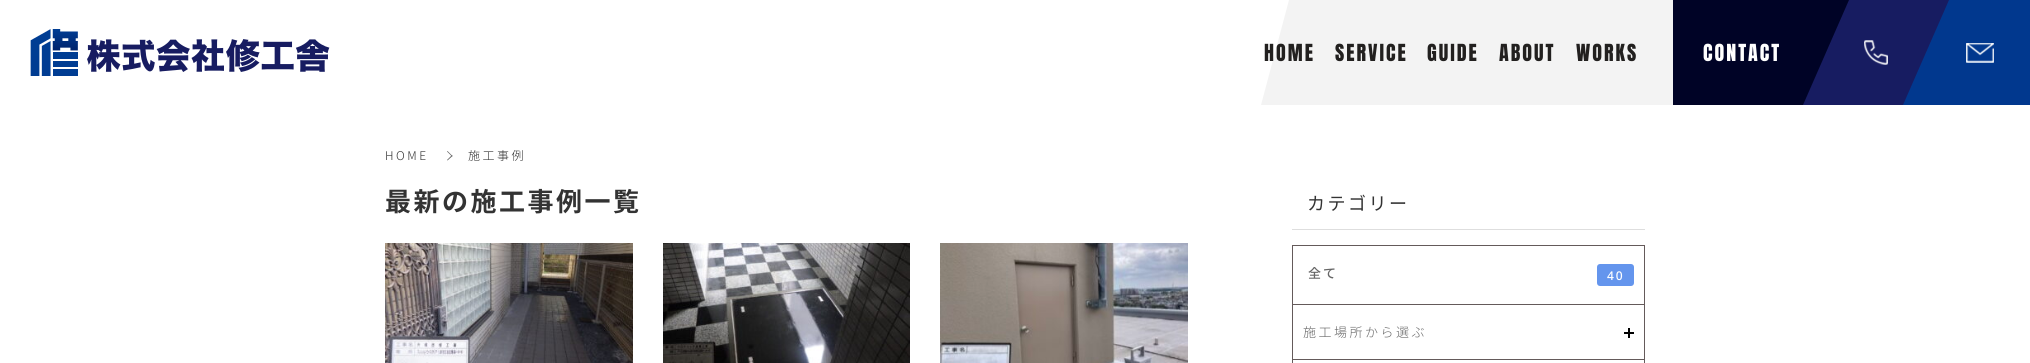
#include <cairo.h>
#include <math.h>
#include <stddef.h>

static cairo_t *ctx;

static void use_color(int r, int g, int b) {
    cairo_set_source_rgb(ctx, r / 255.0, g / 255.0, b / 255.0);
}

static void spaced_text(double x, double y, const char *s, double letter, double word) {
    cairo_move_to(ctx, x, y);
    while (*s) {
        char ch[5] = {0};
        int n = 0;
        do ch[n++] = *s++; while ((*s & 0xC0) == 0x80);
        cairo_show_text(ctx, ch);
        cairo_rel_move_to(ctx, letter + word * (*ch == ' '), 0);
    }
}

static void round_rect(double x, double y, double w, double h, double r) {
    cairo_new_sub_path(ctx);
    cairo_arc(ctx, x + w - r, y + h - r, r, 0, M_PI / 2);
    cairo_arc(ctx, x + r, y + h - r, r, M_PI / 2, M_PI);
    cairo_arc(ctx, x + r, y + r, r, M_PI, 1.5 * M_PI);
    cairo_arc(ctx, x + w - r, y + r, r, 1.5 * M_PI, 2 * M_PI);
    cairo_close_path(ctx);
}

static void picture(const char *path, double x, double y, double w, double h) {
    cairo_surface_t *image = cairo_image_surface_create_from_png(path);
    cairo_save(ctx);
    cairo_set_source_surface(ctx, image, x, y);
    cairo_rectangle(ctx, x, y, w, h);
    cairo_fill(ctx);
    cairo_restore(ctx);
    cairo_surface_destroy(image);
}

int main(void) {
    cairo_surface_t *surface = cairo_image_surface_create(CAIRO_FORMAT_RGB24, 2030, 363);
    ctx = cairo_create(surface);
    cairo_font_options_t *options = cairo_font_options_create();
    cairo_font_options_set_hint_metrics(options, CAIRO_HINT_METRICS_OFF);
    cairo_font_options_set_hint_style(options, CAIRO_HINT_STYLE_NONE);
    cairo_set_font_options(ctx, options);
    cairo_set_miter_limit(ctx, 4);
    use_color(255, 255, 255);
    cairo_paint(ctx);
    picture("img1.png", 30, 29, 300, 47);
    use_color(243, 243, 243);
    cairo_new_path(ctx);
    cairo_move_to(ctx, 1289, 0);
    cairo_line_to(ctx, 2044, 0);
    cairo_line_to(ctx, 2016, 105);
    cairo_line_to(ctx, 1261, 105);
    cairo_close_path(ctx);
    cairo_fill(ctx);
    cairo_select_font_face(ctx, "Anton", CAIRO_FONT_SLANT_NORMAL, CAIRO_FONT_WEIGHT_NORMAL);
    cairo_set_font_size(ctx, 20);
    use_color(34, 32, 31);
    spaced_text(1264, 61, "HOME", 2, 0);
    spaced_text(1335, 61, "SERVICE", 2, 0);
    spaced_text(1427, 61, "GUIDE", 2, 0);
    spaced_text(1499, 61, "ABOUT", 2, 0);
    spaced_text(1576, 61, "WORKS", 2, 0);
    use_color(0, 3, 38);
    cairo_rectangle(ctx, 1673, 0, 153, 105);
    cairo_fill(ctx);
    use_color(255, 255, 255);
    spaced_text(1703, 61, "CONTACT", 2, 0);
    use_color(0, 3, 38);
    cairo_new_path(ctx);
    cairo_move_to(ctx, 1820, 0);
    cairo_line_to(ctx, 1850, 0);
    cairo_line_to(ctx, 1804, 105);
    cairo_line_to(ctx, 1774, 105);
    cairo_close_path(ctx);
    cairo_fill(ctx);
    use_color(1, 56, 142);
    cairo_rectangle(ctx, 1930, 0, 100, 105);
    cairo_fill(ctx);
    cairo_rectangle(ctx, 1903, 43, 27, 62);
    cairo_fill(ctx);
    use_color(23, 28, 97);
    cairo_new_path(ctx);
    cairo_move_to(ctx, 1849, 0);
    cairo_line_to(ctx, 1949, 0);
    cairo_line_to(ctx, 1903, 105);
    cairo_line_to(ctx, 1803, 105);
    cairo_close_path(ctx);
    cairo_fill(ctx);
    picture("img2.png", 1864, 40, 24, 25);
    picture("img3.png", 1966, 43, 28, 20);
    cairo_select_font_face(ctx, "Noto Sans JP Light", CAIRO_FONT_SLANT_NORMAL, CAIRO_FONT_WEIGHT_NORMAL);
    cairo_set_font_size(ctx, 12);
    use_color(51, 51, 51);
    spaced_text(385, 160, "HOME", 2.5, 0);
    use_color(102, 102, 102);
    cairo_new_path(ctx);
    cairo_move_to(ctx, 452, 156.5);
    cairo_line_to(ctx, 447, 151.5);
    cairo_line_to(ctx, 447.5, 151);
    cairo_line_to(ctx, 452.5, 156);
    cairo_close_path(ctx);
    cairo_fill(ctx);
    cairo_new_path(ctx);
    cairo_move_to(ctx, 447.5, 160.5);
    cairo_line_to(ctx, 447, 160);
    cairo_line_to(ctx, 452, 155);
    cairo_line_to(ctx, 452.5, 156);
    cairo_close_path(ctx);
    cairo_fill(ctx);
    use_color(51, 51, 51);
    spaced_text(468, 160, "施工事例", 2.5, 0);
    cairo_select_font_face(ctx, "Noto Sans JP", CAIRO_FONT_SLANT_NORMAL, CAIRO_FONT_WEIGHT_BOLD);
    cairo_set_font_size(ctx, 26);
    spaced_text(385, 211, "最新の施工事例一覧", 2.5, 0);
    picture("img4.png", 385, 243, 248, 120);
    picture("img5.png", 663, 243, 247, 120);
    picture("img6.png", 940, 243, 248, 120);
    use_color(222, 222, 222);
    cairo_rectangle(ctx, 1292, 229, 353, 1);
    cairo_fill(ctx);
    cairo_select_font_face(ctx, "Noto Sans JP", CAIRO_FONT_SLANT_NORMAL, CAIRO_FONT_WEIGHT_NORMAL);
    cairo_set_font_size(ctx, 18);
    use_color(51, 51, 51);
    spaced_text(1307, 210, "カテゴリー", 2.5, 0);
    cairo_rectangle(ctx, 1292.5, 245.5, 352, 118);
    use_color(100, 90, 90);
    cairo_set_line_width(ctx, 1);
    cairo_stroke(ctx);
    cairo_select_font_face(ctx, "Noto Sans JP Medium", CAIRO_FONT_SLANT_NORMAL, CAIRO_FONT_WEIGHT_NORMAL);
    cairo_set_font_size(ctx, 13);
    use_color(102, 102, 102);
    spaced_text(1308, 278, "全て", 2, 0);
    use_color(100, 149, 237);
    round_rect(1597, 264, 37, 22, 3);
    cairo_fill(ctx);
    cairo_select_font_face(ctx, "Noto Sans Medium", CAIRO_FONT_SLANT_NORMAL, CAIRO_FONT_WEIGHT_NORMAL);
    cairo_set_font_size(ctx, 12);
    use_color(255, 255, 255);
    spaced_text(1607, 280, "40", 2, 0);
    use_color(100, 90, 90);
    cairo_rectangle(ctx, 1293, 304, 351, 1);
    cairo_fill(ctx);
    cairo_select_font_face(ctx, "Noto Sans JP Light", CAIRO_FONT_SLANT_NORMAL, CAIRO_FONT_WEIGHT_NORMAL);
    cairo_set_font_size(ctx, 13);
    use_color(102, 102, 102);
    spaced_text(1303, 337, "施工場所から選ぶ", 2.5, 0);
    use_color(0, 0, 0);
    cairo_rectangle(ctx, 1624, 332, 10, 2);
    cairo_fill(ctx);
    cairo_rectangle(ctx, 1628, 328, 2, 10);
    cairo_fill(ctx);
    use_color(100, 90, 90);
    cairo_rectangle(ctx, 1293, 359, 351, 1);
    cairo_fill(ctx);
    cairo_surface_write_to_png(surface, "result.png");
    cairo_font_options_destroy(options);
    cairo_destroy(ctx);
    cairo_surface_destroy(surface);
    return 0;
}
